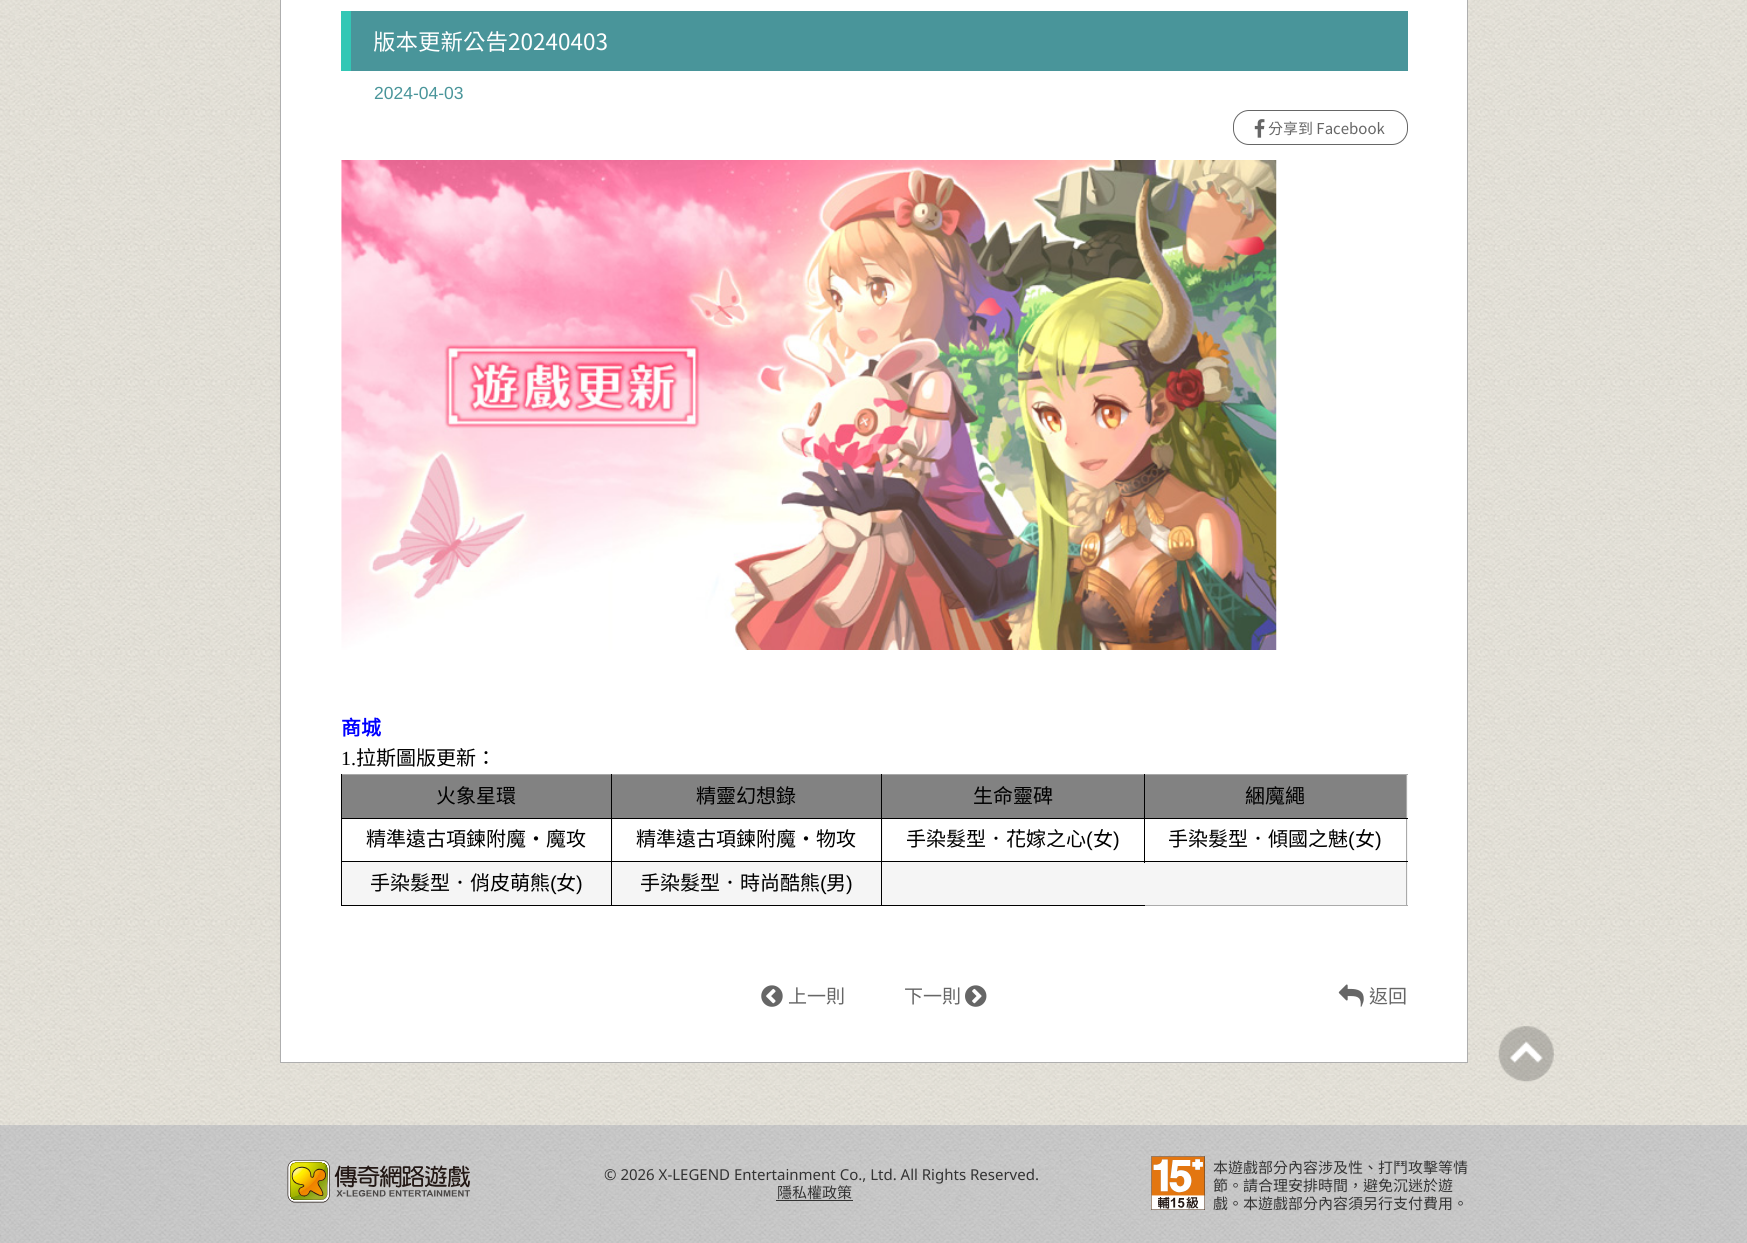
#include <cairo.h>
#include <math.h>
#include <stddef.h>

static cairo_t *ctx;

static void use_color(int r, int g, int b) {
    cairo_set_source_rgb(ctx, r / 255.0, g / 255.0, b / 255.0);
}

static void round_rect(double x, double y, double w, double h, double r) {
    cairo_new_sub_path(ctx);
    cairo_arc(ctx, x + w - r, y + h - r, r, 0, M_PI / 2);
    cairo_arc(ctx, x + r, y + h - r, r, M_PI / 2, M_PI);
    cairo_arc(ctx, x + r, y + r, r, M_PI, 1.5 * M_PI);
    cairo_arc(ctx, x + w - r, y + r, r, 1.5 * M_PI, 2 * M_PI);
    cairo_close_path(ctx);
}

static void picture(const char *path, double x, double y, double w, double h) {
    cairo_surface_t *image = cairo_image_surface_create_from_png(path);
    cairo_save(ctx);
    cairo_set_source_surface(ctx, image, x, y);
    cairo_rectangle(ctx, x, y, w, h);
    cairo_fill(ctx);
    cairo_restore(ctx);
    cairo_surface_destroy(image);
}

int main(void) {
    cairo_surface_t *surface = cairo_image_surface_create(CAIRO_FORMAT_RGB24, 1747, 1243);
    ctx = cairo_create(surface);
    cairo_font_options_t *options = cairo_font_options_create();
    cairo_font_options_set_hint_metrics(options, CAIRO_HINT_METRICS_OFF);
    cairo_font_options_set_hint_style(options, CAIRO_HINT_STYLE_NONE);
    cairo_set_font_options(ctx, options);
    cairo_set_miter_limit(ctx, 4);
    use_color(255, 255, 255);
    cairo_paint(ctx);
    picture("img1.png", 0, 0, 1747, 1125);
    use_color(255, 255, 255);
    cairo_rectangle(ctx, 280.5, -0.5, 1187, 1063);
    cairo_fill_preserve(ctx);
    use_color(174, 174, 174);
    cairo_set_line_width(ctx, 1);
    cairo_stroke(ctx);
    use_color(73, 149, 154);
    cairo_rectangle(ctx, 351, 11, 1057, 60);
    cairo_fill(ctx);
    use_color(50, 199, 181);
    cairo_rectangle(ctx, 341, 11, 10, 60);
    cairo_fill(ctx);
    cairo_select_font_face(ctx, "Noto Sans TC", CAIRO_FONT_SLANT_NORMAL, CAIRO_FONT_WEIGHT_NORMAL);
    cairo_set_font_size(ctx, 22.5);
    use_color(255, 255, 255);
    cairo_move_to(ctx, 373, 50);
    cairo_show_text(ctx, "版本更新公告20240403");
    cairo_select_font_face(ctx, "Liberation Sans", CAIRO_FONT_SLANT_NORMAL, CAIRO_FONT_WEIGHT_NORMAL);
    cairo_set_font_size(ctx, 17.5);
    use_color(73, 149, 154);
    cairo_move_to(ctx, 374, 99);
    cairo_show_text(ctx, "2024-04-03");
    round_rect(1233.5, 110.5, 174, 34, 15.5);
    use_color(102, 102, 102);
    cairo_stroke(ctx);
    picture("img2.png", 1254, 119, 11, 19);
    cairo_select_font_face(ctx, "Noto Sans TC", CAIRO_FONT_SLANT_NORMAL, CAIRO_FONT_WEIGHT_NORMAL);
    cairo_set_font_size(ctx, 15);
    cairo_move_to(ctx, 1268, 134);
    cairo_show_text(ctx, "分享到 Facebook");
    picture("img3.png", 341, 160, 936, 490);
    cairo_select_font_face(ctx, "Noto Sans CJK TC", CAIRO_FONT_SLANT_NORMAL, CAIRO_FONT_WEIGHT_BOLD);
    cairo_set_font_size(ctx, 20);
    use_color(0, 0, 255);
    cairo_move_to(ctx, 341, 735);
    cairo_show_text(ctx, "商城");
    cairo_select_font_face(ctx, "Liberation Serif", CAIRO_FONT_SLANT_NORMAL, CAIRO_FONT_WEIGHT_NORMAL);
    use_color(0, 0, 0);
    cairo_move_to(ctx, 341, 765);
    cairo_show_text(ctx, "1.");
    cairo_select_font_face(ctx, "Noto Sans CJK TC", CAIRO_FONT_SLANT_NORMAL, CAIRO_FONT_WEIGHT_NORMAL);
    cairo_move_to(ctx, 356, 765);
    cairo_show_text(ctx, "拉斯圖版更新：");
    use_color(245, 245, 245);
    cairo_rectangle(ctx, 342, 775, 1066, 130);
    cairo_fill(ctx);
    use_color(170, 170, 170);
    cairo_rectangle(ctx, 341, 774, 1067, 1);
    cairo_fill(ctx);
    cairo_rectangle(ctx, 1406, 774, 1, 132);
    cairo_fill(ctx);
    cairo_rectangle(ctx, 1145, 905, 263, 1);
    cairo_fill(ctx);
    use_color(130, 130, 130);
    cairo_rectangle(ctx, 342, 775, 1064, 43);
    cairo_fill(ctx);
    use_color(0, 0, 0);
    cairo_rectangle(ctx, 1144, 861, 264, 1);
    cairo_fill(ctx);
    cairo_rectangle(ctx, 1144, 818, 1, 45);
    cairo_fill(ctx);
    cairo_rectangle(ctx, 1144, 818, 264, 1);
    cairo_fill(ctx);
    cairo_rectangle(ctx, 1144, 774, 1, 45);
    cairo_fill(ctx);
    cairo_rectangle(ctx, 881, 905, 264, 1);
    cairo_fill(ctx);
    cairo_rectangle(ctx, 881, 861, 1, 45);
    cairo_fill(ctx);
    cairo_rectangle(ctx, 881, 861, 264, 1);
    cairo_fill(ctx);
    cairo_rectangle(ctx, 881, 818, 1, 45);
    cairo_fill(ctx);
    cairo_rectangle(ctx, 881, 818, 264, 1);
    cairo_fill(ctx);
    cairo_rectangle(ctx, 881, 774, 1, 45);
    cairo_fill(ctx);
    cairo_rectangle(ctx, 611, 905, 272, 1);
    cairo_fill(ctx);
    cairo_rectangle(ctx, 611, 861, 1, 45);
    cairo_fill(ctx);
    cairo_rectangle(ctx, 611, 861, 272, 1);
    cairo_fill(ctx);
    cairo_rectangle(ctx, 611, 818, 1, 45);
    cairo_fill(ctx);
    cairo_rectangle(ctx, 611, 818, 272, 1);
    cairo_fill(ctx);
    cairo_rectangle(ctx, 611, 774, 1, 45);
    cairo_fill(ctx);
    cairo_rectangle(ctx, 341, 905, 272, 1);
    cairo_fill(ctx);
    cairo_rectangle(ctx, 341, 861, 1, 45);
    cairo_fill(ctx);
    cairo_rectangle(ctx, 341, 861, 272, 1);
    cairo_fill(ctx);
    cairo_rectangle(ctx, 341, 818, 1, 45);
    cairo_fill(ctx);
    cairo_rectangle(ctx, 341, 818, 272, 1);
    cairo_fill(ctx);
    cairo_rectangle(ctx, 341, 774, 1, 45);
    cairo_fill(ctx);
    cairo_move_to(ctx, 436, 803);
    cairo_show_text(ctx, "火象星環");
    cairo_move_to(ctx, 696, 803);
    cairo_show_text(ctx, "精靈幻想錄");
    cairo_move_to(ctx, 973, 803);
    cairo_show_text(ctx, "生命靈碑");
    cairo_move_to(ctx, 1245, 803);
    cairo_show_text(ctx, "綑魔繩");
    use_color(255, 255, 255);
    cairo_rectangle(ctx, 343, 819, 268, 42);
    cairo_fill(ctx);
    use_color(0, 0, 0);
    cairo_move_to(ctx, 366, 846);
    cairo_show_text(ctx, "精準遠古項鍊附魔‧魔攻");
    use_color(255, 255, 255);
    cairo_rectangle(ctx, 613, 819, 268, 42);
    cairo_fill(ctx);
    use_color(0, 0, 0);
    cairo_move_to(ctx, 636, 846);
    cairo_show_text(ctx, "精準遠古項鍊附魔‧物攻");
    use_color(255, 255, 255);
    cairo_rectangle(ctx, 883, 819, 261, 42);
    cairo_fill(ctx);
    use_color(0, 0, 0);
    cairo_move_to(ctx, 906, 846);
    cairo_show_text(ctx, "手染髮型．花嫁之心");
    cairo_select_font_face(ctx, "Liberation Sans", CAIRO_FONT_SLANT_NORMAL, CAIRO_FONT_WEIGHT_NORMAL);
    cairo_move_to(ctx, 1086, 846);
    cairo_show_text(ctx, "(");
    cairo_select_font_face(ctx, "Noto Sans CJK TC", CAIRO_FONT_SLANT_NORMAL, CAIRO_FONT_WEIGHT_NORMAL);
    cairo_move_to(ctx, 1093, 846);
    cairo_show_text(ctx, "女");
    cairo_select_font_face(ctx, "Liberation Sans", CAIRO_FONT_SLANT_NORMAL, CAIRO_FONT_WEIGHT_NORMAL);
    cairo_move_to(ctx, 1113, 846);
    cairo_show_text(ctx, ")");
    use_color(255, 255, 255);
    cairo_rectangle(ctx, 1145, 819, 261, 42);
    cairo_fill(ctx);
    cairo_select_font_face(ctx, "Noto Sans CJK TC", CAIRO_FONT_SLANT_NORMAL, CAIRO_FONT_WEIGHT_NORMAL);
    use_color(0, 0, 0);
    cairo_move_to(ctx, 1168, 846);
    cairo_show_text(ctx, "手染髮型．傾國之魅");
    cairo_select_font_face(ctx, "Liberation Sans", CAIRO_FONT_SLANT_NORMAL, CAIRO_FONT_WEIGHT_NORMAL);
    cairo_move_to(ctx, 1348, 846);
    cairo_show_text(ctx, "(");
    cairo_select_font_face(ctx, "Noto Sans CJK TC", CAIRO_FONT_SLANT_NORMAL, CAIRO_FONT_WEIGHT_NORMAL);
    cairo_move_to(ctx, 1355, 846);
    cairo_show_text(ctx, "女");
    cairo_select_font_face(ctx, "Liberation Sans", CAIRO_FONT_SLANT_NORMAL, CAIRO_FONT_WEIGHT_NORMAL);
    cairo_move_to(ctx, 1375, 846);
    cairo_show_text(ctx, ")");
    cairo_select_font_face(ctx, "Noto Sans CJK TC", CAIRO_FONT_SLANT_NORMAL, CAIRO_FONT_WEIGHT_NORMAL);
    cairo_move_to(ctx, 370, 890);
    cairo_show_text(ctx, "手染髮型．俏皮萌熊");
    cairo_select_font_face(ctx, "Liberation Sans", CAIRO_FONT_SLANT_NORMAL, CAIRO_FONT_WEIGHT_NORMAL);
    cairo_move_to(ctx, 550, 890);
    cairo_show_text(ctx, "(");
    cairo_select_font_face(ctx, "Noto Sans CJK TC", CAIRO_FONT_SLANT_NORMAL, CAIRO_FONT_WEIGHT_NORMAL);
    cairo_move_to(ctx, 556, 890);
    cairo_show_text(ctx, "女");
    cairo_select_font_face(ctx, "Liberation Sans", CAIRO_FONT_SLANT_NORMAL, CAIRO_FONT_WEIGHT_NORMAL);
    cairo_move_to(ctx, 576, 890);
    cairo_show_text(ctx, ")");
    cairo_select_font_face(ctx, "Noto Sans CJK TC", CAIRO_FONT_SLANT_NORMAL, CAIRO_FONT_WEIGHT_NORMAL);
    cairo_move_to(ctx, 640, 890);
    cairo_show_text(ctx, "手染髮型．時尚酷熊");
    cairo_select_font_face(ctx, "Liberation Sans", CAIRO_FONT_SLANT_NORMAL, CAIRO_FONT_WEIGHT_NORMAL);
    cairo_move_to(ctx, 820, 890);
    cairo_show_text(ctx, "(");
    cairo_select_font_face(ctx, "Noto Sans CJK TC", CAIRO_FONT_SLANT_NORMAL, CAIRO_FONT_WEIGHT_NORMAL);
    cairo_move_to(ctx, 826, 890);
    cairo_show_text(ctx, "男");
    cairo_select_font_face(ctx, "Liberation Sans", CAIRO_FONT_SLANT_NORMAL, CAIRO_FONT_WEIGHT_NORMAL);
    cairo_move_to(ctx, 846, 890);
    cairo_show_text(ctx, ")");
    picture("img4.png", 761, 985, 22, 22);
    cairo_select_font_face(ctx, "Noto Sans CJK TC", CAIRO_FONT_SLANT_NORMAL, CAIRO_FONT_WEIGHT_NORMAL);
    cairo_set_font_size(ctx, 19);
    use_color(102, 102, 102);
    cairo_move_to(ctx, 788, 1003);
    cairo_show_text(ctx, "上一則");
    cairo_move_to(ctx, 904, 1003);
    cairo_show_text(ctx, "下一則");
    picture("img5.png", 965, 985, 22, 22);
    picture("img6.png", 1338, 984, 26, 23);
    cairo_move_to(ctx, 1369, 1003);
    cairo_show_text(ctx, "返回");
    picture("img7.png", 1498, 1026, 56, 56);
    picture("img8.png", 0, 1125, 1747, 118);
    picture("img9.png", 287, 1160, 184, 43);
    cairo_select_font_face(ctx, "Noto Sans", CAIRO_FONT_SLANT_NORMAL, CAIRO_FONT_WEIGHT_NORMAL);
    cairo_set_font_size(ctx, 15);
    use_color(51, 51, 51);
    cairo_move_to(ctx, 604, 1180);
    cairo_show_text(ctx, "© 2026 X-LEGEND Entertainment Co., Ltd. All Rights Reserved.");
    cairo_select_font_face(ctx, "Noto Sans CJK TC", CAIRO_FONT_SLANT_NORMAL, CAIRO_FONT_WEIGHT_NORMAL);
    cairo_move_to(ctx, 777, 1198);
    cairo_show_text(ctx, "隱私權政策");
    cairo_rectangle(ctx, 776, 1200, 77, 1);
    cairo_fill(ctx);
    picture("img10.png", 1151, 1156, 54, 54);
    cairo_select_font_face(ctx, "Noto Sans TC", CAIRO_FONT_SLANT_NORMAL, CAIRO_FONT_WEIGHT_NORMAL);
    cairo_move_to(ctx, 1213, 1173);
    cairo_show_text(ctx, "本遊戲部分內容涉及性、打鬥攻擊等情");
    cairo_move_to(ctx, 1213, 1191);
    cairo_show_text(ctx, "節。請合理安排時間，避免沉迷於遊");
    cairo_move_to(ctx, 1213, 1209);
    cairo_show_text(ctx, "戲。本遊戲部分內容須另行支付費用。");
    cairo_surface_write_to_png(surface, "result.png");
    cairo_font_options_destroy(options);
    cairo_destroy(ctx);
    cairo_surface_destroy(surface);
    return 0;
}
